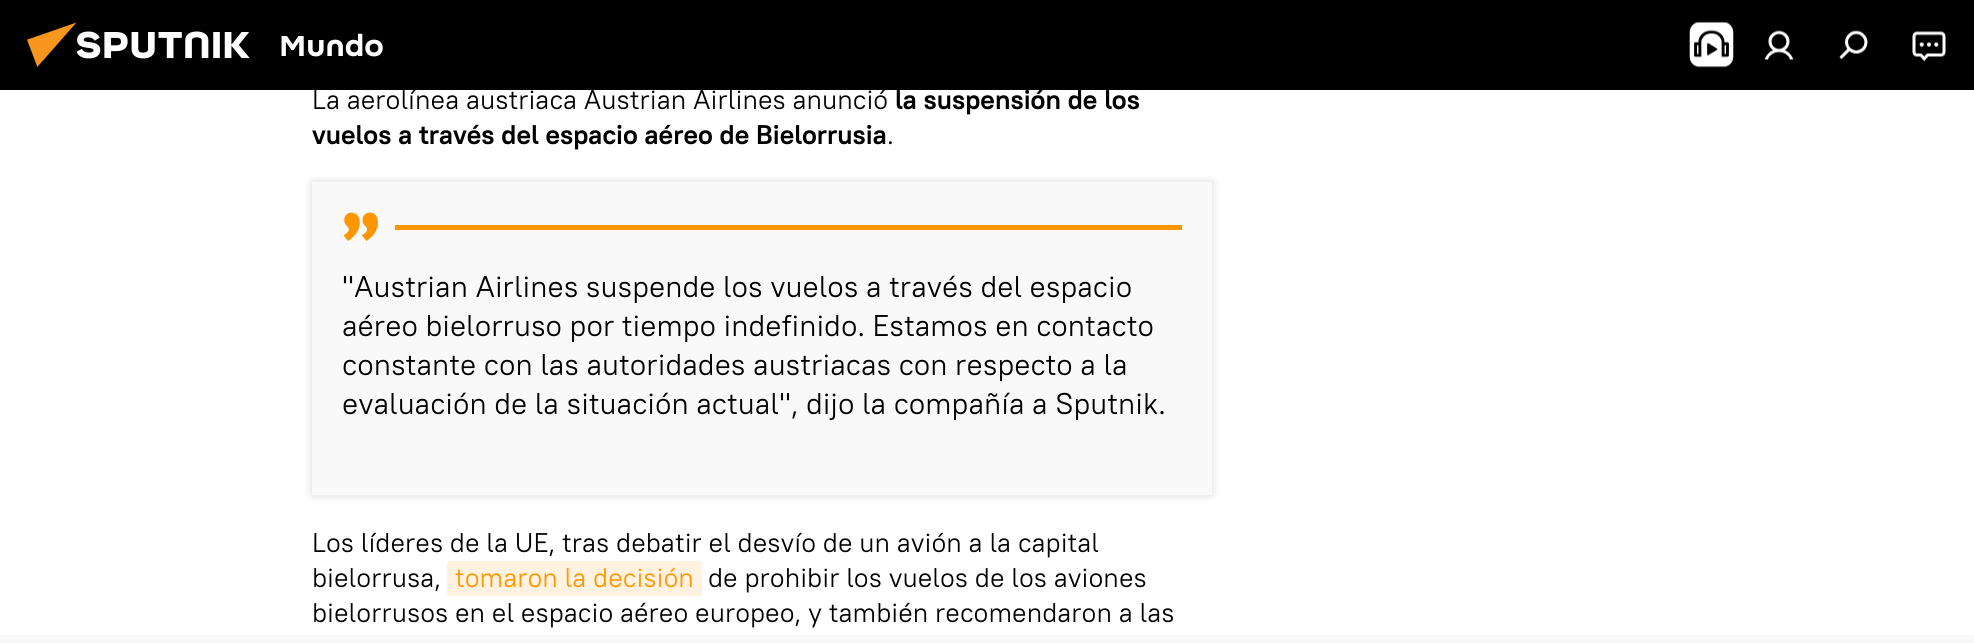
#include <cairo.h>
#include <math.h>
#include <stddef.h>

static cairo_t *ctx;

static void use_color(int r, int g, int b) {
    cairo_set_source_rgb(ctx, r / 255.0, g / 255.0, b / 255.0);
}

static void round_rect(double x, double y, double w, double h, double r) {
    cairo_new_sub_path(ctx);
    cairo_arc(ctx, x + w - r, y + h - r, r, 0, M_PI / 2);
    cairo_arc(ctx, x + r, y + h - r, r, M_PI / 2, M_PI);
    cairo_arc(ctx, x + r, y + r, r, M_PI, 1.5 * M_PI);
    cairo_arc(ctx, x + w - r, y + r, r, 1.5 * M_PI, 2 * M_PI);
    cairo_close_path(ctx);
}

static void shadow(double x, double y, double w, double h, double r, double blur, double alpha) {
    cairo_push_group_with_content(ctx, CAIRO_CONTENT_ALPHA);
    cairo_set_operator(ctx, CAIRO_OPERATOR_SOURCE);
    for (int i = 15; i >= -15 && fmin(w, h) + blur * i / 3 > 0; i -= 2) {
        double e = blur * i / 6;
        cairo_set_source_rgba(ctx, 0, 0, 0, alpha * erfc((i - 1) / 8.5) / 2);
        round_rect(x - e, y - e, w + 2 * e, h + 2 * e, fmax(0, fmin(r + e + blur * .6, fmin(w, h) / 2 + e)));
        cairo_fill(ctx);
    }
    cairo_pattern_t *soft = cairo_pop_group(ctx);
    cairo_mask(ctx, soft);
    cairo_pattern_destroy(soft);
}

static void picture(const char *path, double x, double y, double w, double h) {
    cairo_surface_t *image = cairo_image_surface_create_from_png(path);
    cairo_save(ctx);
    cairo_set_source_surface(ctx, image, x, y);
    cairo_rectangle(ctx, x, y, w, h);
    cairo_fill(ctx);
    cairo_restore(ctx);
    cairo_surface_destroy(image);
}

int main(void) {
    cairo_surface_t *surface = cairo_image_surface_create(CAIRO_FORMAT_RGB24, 1974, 643);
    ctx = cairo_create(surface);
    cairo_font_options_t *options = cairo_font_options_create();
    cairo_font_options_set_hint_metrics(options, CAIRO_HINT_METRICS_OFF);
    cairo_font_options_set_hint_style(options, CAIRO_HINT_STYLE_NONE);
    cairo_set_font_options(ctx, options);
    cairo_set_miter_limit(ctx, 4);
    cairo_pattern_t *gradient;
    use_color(255, 255, 255);
    cairo_paint(ctx);
    use_color(0, 0, 0);
    cairo_rectangle(ctx, 0, 0, 1974, 90);
    cairo_fill(ctx);
    picture("img1.png", 27, 22, 223, 45);
    cairo_select_font_face(ctx, "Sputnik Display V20", CAIRO_FONT_SLANT_NORMAL, CAIRO_FONT_WEIGHT_BOLD);
    cairo_set_font_size(ctx, 28.5);
    use_color(255, 255, 255);
    cairo_move_to(ctx, 279, 56);
    cairo_show_text(ctx, "Mundo");
    picture("img2.png", 1689, 21, 45, 47);
    picture("img3.png", 1764, 30, 30, 30);
    picture("img4.png", 1839, 30, 29, 30);
    picture("img5.png", 1912, 31, 34, 31);
    cairo_select_font_face(ctx, "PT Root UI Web", CAIRO_FONT_SLANT_NORMAL, CAIRO_FONT_WEIGHT_NORMAL);
    cairo_set_font_size(ctx, 27);
    use_color(0, 0, 0);
    cairo_move_to(ctx, 312, 109);
    cairo_show_text(ctx, "La aerolínea austriaca Austrian Airlines anunció");
    cairo_select_font_face(ctx, "PT Root UI Web", CAIRO_FONT_SLANT_NORMAL, CAIRO_FONT_WEIGHT_BOLD);
    cairo_move_to(ctx, 895, 109);
    cairo_show_text(ctx, "la suspensión de los");
    cairo_move_to(ctx, 312, 144);
    cairo_show_text(ctx, "vuelos a través del espacio aéreo de Bielorrusia");
    cairo_select_font_face(ctx, "PT Root UI Web", CAIRO_FONT_SLANT_NORMAL, CAIRO_FONT_WEIGHT_NORMAL);
    cairo_move_to(ctx, 887, 144);
    cairo_show_text(ctx, ".");
    use_color(0, 0, 0);
    shadow(312, 182, 900, 313, 0, 4.5, 0.15);
    use_color(249, 249, 249);
    cairo_rectangle(ctx, 312, 182, 900, 313);
    cairo_fill(ctx);
    picture("img6.png", 343, 212, 35, 29);
    use_color(255, 150, 0);
    cairo_rectangle(ctx, 395, 225, 787, 5);
    cairo_fill(ctx);
    cairo_set_font_size(ctx, 30);
    use_color(0, 0, 0);
    cairo_move_to(ctx, 342, 297);
    cairo_show_text(ctx, "\"Austrian Airlines suspende los vuelos a través del espacio");
    cairo_move_to(ctx, 342, 336);
    cairo_show_text(ctx, "aéreo bielorruso por tiempo indefinido. Estamos en contacto");
    cairo_move_to(ctx, 342, 375);
    cairo_show_text(ctx, "constante con las autoridades austriacas con respecto a la");
    cairo_move_to(ctx, 342, 414);
    cairo_show_text(ctx, "evaluación de la situación actual\", dijo la compañía a Sputnik.");
    cairo_set_font_size(ctx, 27);
    cairo_move_to(ctx, 312, 552);
    cairo_show_text(ctx, "Los líderes de la UE, tras debatir el desvío de un avión a la capital");
    cairo_move_to(ctx, 312, 587);
    cairo_show_text(ctx, "bielorrusa,");
    use_color(255, 242, 224);
    round_rect(447, 561, 255, 35, 3);
    cairo_fill(ctx);
    use_color(255, 150, 0);
    cairo_move_to(ctx, 455, 587);
    cairo_show_text(ctx, "tomaron la decisión");
    use_color(0, 0, 0);
    cairo_move_to(ctx, 708, 587);
    cairo_show_text(ctx, "de prohibir los vuelos de los aviones");
    cairo_move_to(ctx, 312, 622);
    cairo_show_text(ctx, "bielorrusos en el espacio aéreo europeo, y también recomendaron a las");
    gradient = cairo_pattern_create_linear(987, 621, 987, 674);
    cairo_pattern_add_color_stop_rgba(gradient, 0, 0, 0, 0, 0);
    cairo_pattern_add_color_stop_rgba(gradient, 0.61, 0, 0, 0, 0.05);
    cairo_pattern_add_color_stop_rgba(gradient, 0.86, 0, 0, 0, 0.09);
    cairo_pattern_add_color_stop_rgba(gradient, 1, 0, 0, 0, 0.18);
    cairo_set_source(ctx, gradient);
    cairo_pattern_destroy(gradient);
    cairo_rectangle(ctx, 0, 635, 1974, 8);
    cairo_fill(ctx);
    cairo_surface_write_to_png(surface, "result.png");
    cairo_font_options_destroy(options);
    cairo_destroy(ctx);
    cairo_surface_destroy(surface);
    return 0;
}
